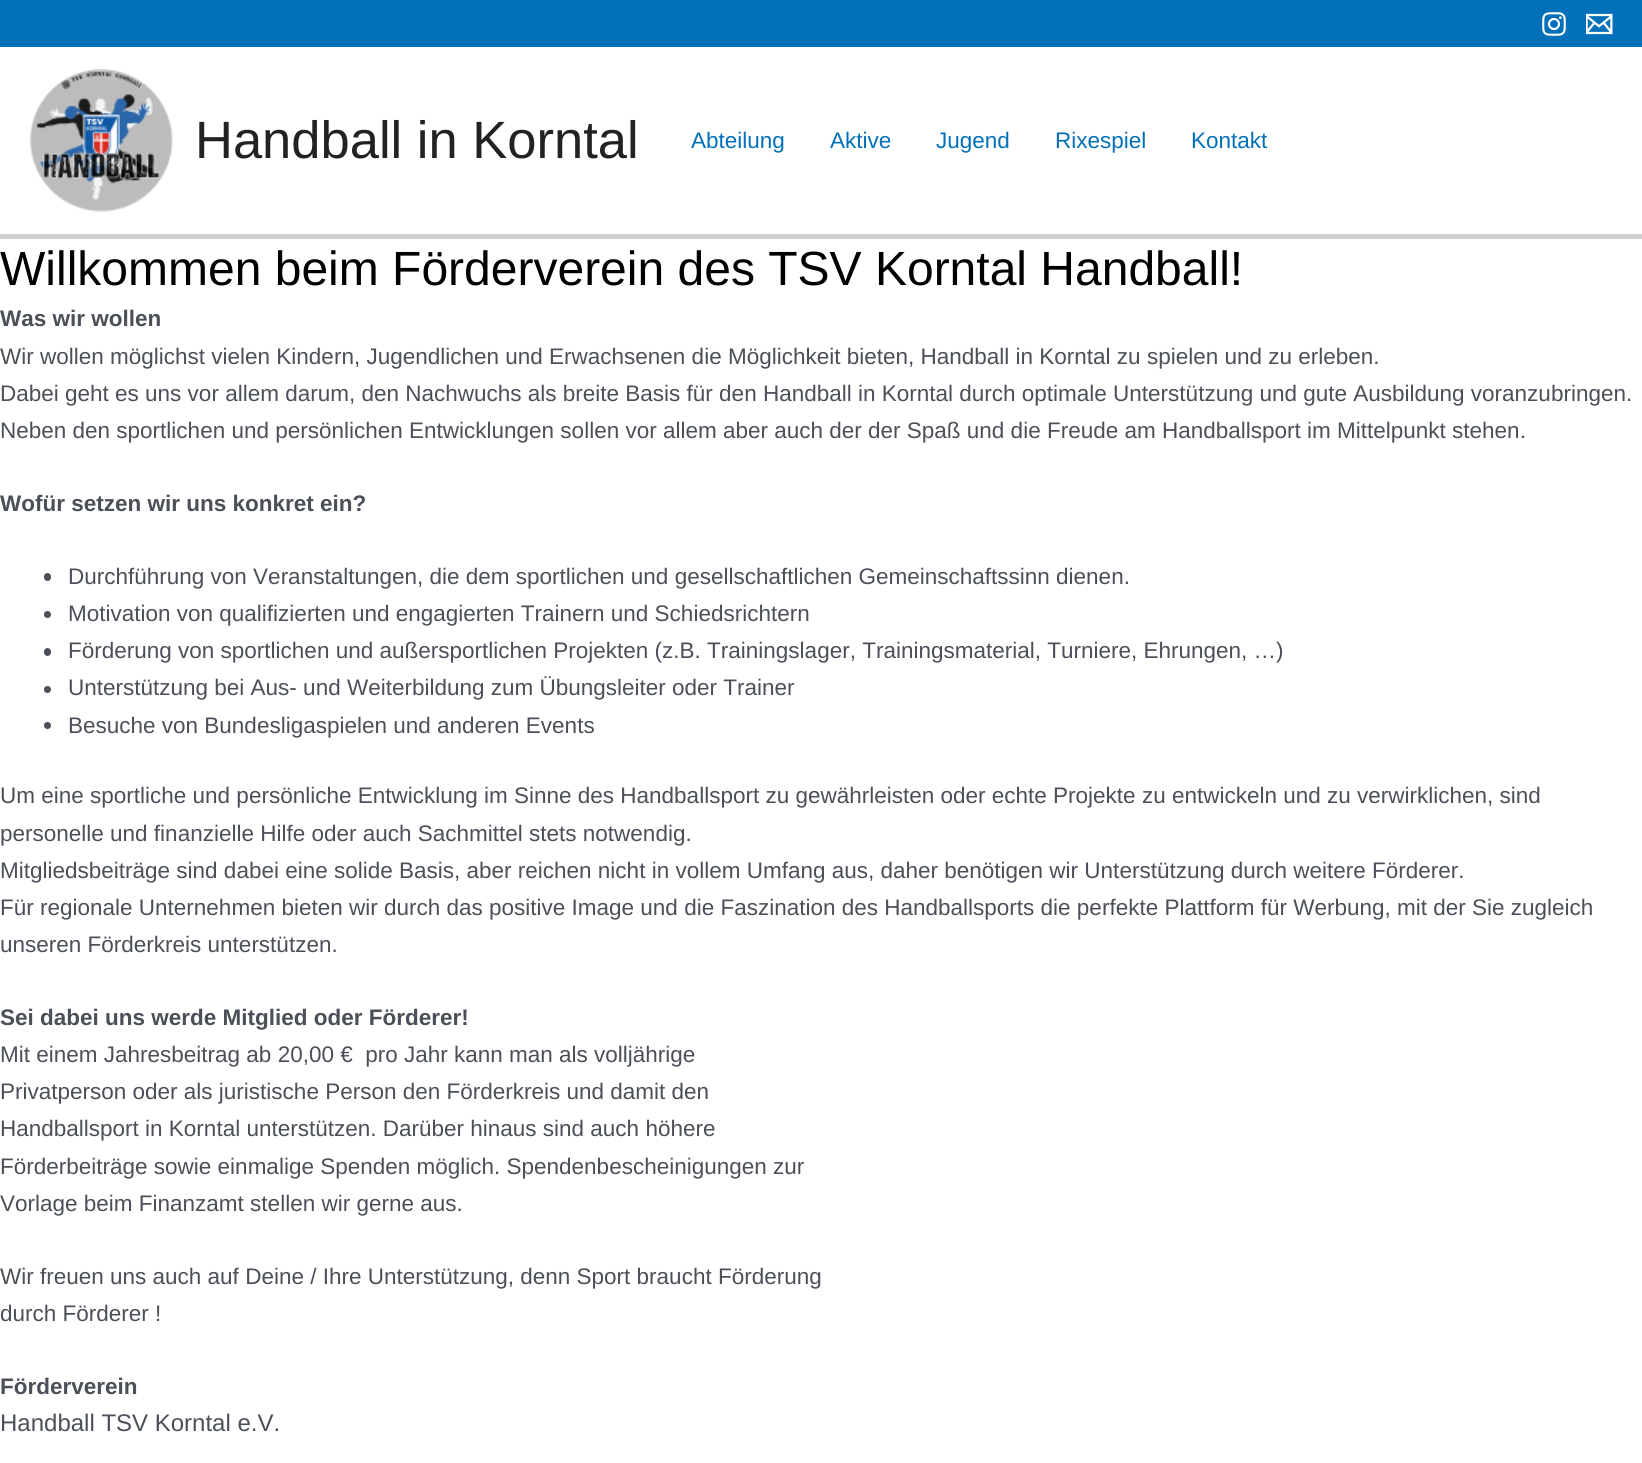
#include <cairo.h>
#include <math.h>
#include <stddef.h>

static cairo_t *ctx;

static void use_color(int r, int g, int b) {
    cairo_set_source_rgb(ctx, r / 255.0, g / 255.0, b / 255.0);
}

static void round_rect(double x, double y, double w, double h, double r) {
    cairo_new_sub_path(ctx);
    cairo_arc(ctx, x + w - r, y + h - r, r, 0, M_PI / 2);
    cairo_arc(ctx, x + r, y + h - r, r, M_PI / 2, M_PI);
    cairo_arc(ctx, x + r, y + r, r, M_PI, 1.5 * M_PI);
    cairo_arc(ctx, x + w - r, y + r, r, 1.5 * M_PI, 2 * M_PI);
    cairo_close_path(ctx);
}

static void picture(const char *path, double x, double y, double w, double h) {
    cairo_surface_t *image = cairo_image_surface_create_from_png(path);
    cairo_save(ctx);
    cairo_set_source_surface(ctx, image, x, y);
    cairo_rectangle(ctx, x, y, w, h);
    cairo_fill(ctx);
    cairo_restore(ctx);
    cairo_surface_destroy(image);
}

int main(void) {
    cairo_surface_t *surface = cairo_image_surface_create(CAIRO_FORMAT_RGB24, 1642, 1463);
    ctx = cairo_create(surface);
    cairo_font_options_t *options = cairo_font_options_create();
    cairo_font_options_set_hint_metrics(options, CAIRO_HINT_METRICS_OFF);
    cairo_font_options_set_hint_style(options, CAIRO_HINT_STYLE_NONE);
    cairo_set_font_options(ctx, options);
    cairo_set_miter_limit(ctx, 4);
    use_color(255, 255, 255);
    cairo_paint(ctx);
    use_color(1, 112, 185);
    cairo_rectangle(ctx, 0, 0, 1642, 47);
    cairo_fill(ctx);
    picture("img1.png", 1542, 12, 24, 24);
    picture("img2.png", 1586, 13, 27, 22);
    use_color(207, 207, 207);
    cairo_rectangle(ctx, 0, 234, 1642, 5);
    cairo_fill(ctx);
    picture("img3.png", 30, 69, 143, 143);
    cairo_select_font_face(ctx, "Liberation Sans", CAIRO_FONT_SLANT_NORMAL, CAIRO_FONT_WEIGHT_NORMAL);
    cairo_set_font_size(ctx, 52.5);
    use_color(34, 34, 34);
    cairo_move_to(ctx, 195, 158);
    cairo_show_text(ctx, "Handball in Korntal");
    cairo_set_font_size(ctx, 22.5);
    use_color(1, 112, 185);
    cairo_move_to(ctx, 691, 148);
    cairo_show_text(ctx, "Abteilung");
    cairo_move_to(ctx, 830, 148);
    cairo_show_text(ctx, "Aktive");
    cairo_move_to(ctx, 936, 148);
    cairo_show_text(ctx, "Jugend");
    cairo_move_to(ctx, 1055, 148);
    cairo_show_text(ctx, "Rixespiel");
    cairo_move_to(ctx, 1191, 148);
    cairo_show_text(ctx, "Kontakt");
    cairo_set_font_size(ctx, 48);
    use_color(0, 0, 0);
    cairo_move_to(ctx, 0, 285);
    cairo_show_text(ctx, "Willkommen beim Förderverein des TSV Korntal Handball!");
    cairo_select_font_face(ctx, "Liberation Sans", CAIRO_FONT_SLANT_NORMAL, CAIRO_FONT_WEIGHT_BOLD);
    cairo_set_font_size(ctx, 22.5);
    use_color(75, 79, 88);
    cairo_move_to(ctx, 0, 326);
    cairo_show_text(ctx, "Was wir wollen");
    cairo_select_font_face(ctx, "Liberation Sans", CAIRO_FONT_SLANT_NORMAL, CAIRO_FONT_WEIGHT_NORMAL);
    cairo_move_to(ctx, 0, 364);
    cairo_show_text(ctx, "Wir wollen möglichst vielen Kindern, Jugendlichen und Erwachsenen die Möglichkeit bieten, Handball in Korntal zu spielen und zu erleben.");
    cairo_move_to(ctx, 0, 401);
    cairo_show_text(ctx, "Dabei geht es uns vor allem darum, den Nachwuchs als breite Basis für den Handball in Korntal durch optimale Unterstützung und gute Ausbildung voranzubringen.");
    cairo_move_to(ctx, 0, 438);
    cairo_show_text(ctx, "Neben den sportlichen und persönlichen Entwicklungen sollen vor allem aber auch der der Spaß und die Freude am Handballsport im Mittelpunkt stehen.");
    cairo_select_font_face(ctx, "Liberation Sans", CAIRO_FONT_SLANT_NORMAL, CAIRO_FONT_WEIGHT_BOLD);
    cairo_move_to(ctx, 0, 511);
    cairo_show_text(ctx, "Wofür setzen wir uns konkret ein?");
    round_rect(44, 573, 7, 8, 3.5);
    cairo_fill(ctx);
    cairo_select_font_face(ctx, "Liberation Sans", CAIRO_FONT_SLANT_NORMAL, CAIRO_FONT_WEIGHT_NORMAL);
    cairo_move_to(ctx, 68, 584);
    cairo_show_text(ctx, "Durchführung von Veranstaltungen, die dem sportlichen und gesellschaftlichen Gemeinschaftssinn dienen.");
    cairo_new_path(ctx);
    cairo_arc(ctx, 47.5, 614.5, 3.5, 0, 2 * M_PI);
    cairo_fill(ctx);
    cairo_move_to(ctx, 68, 621);
    cairo_show_text(ctx, "Motivation von qualifizierten und engagierten Trainern und Schiedsrichtern");
    round_rect(44, 648, 7, 8, 3.5);
    cairo_fill(ctx);
    cairo_move_to(ctx, 68, 658);
    cairo_show_text(ctx, "Förderung von sportlichen und außersportlichen Projekten (z.B. Trainingslager, Trainingsmaterial, Turniere, Ehrungen, …)");
    cairo_new_path(ctx);
    cairo_arc(ctx, 47.5, 689.5, 3.5, 0, 2 * M_PI);
    cairo_fill(ctx);
    cairo_move_to(ctx, 68, 695);
    cairo_show_text(ctx, "Unterstützung bei Aus- und Weiterbildung zum Übungsleiter oder Trainer");
    cairo_new_path(ctx);
    cairo_arc(ctx, 47.5, 725.5, 3.5, 0, 2 * M_PI);
    cairo_fill(ctx);
    cairo_move_to(ctx, 68, 733);
    cairo_show_text(ctx, "Besuche von Bundesligaspielen und anderen Events");
    cairo_move_to(ctx, 0, 803);
    cairo_show_text(ctx, "Um eine sportliche und persönliche Entwicklung im Sinne des Handballsport zu gewährleisten oder echte Projekte zu entwickeln und zu verwirklichen, sind");
    cairo_move_to(ctx, 0, 841);
    cairo_show_text(ctx, "personelle und finanzielle Hilfe oder auch Sachmittel stets notwendig.");
    cairo_move_to(ctx, 0, 878);
    cairo_show_text(ctx, "Mitgliedsbeiträge sind dabei eine solide Basis, aber reichen nicht in vollem Umfang aus, daher benötigen wir Unterstützung durch weitere Förderer.");
    cairo_move_to(ctx, 0, 915);
    cairo_show_text(ctx, "Für regionale Unternehmen bieten wir durch das positive Image und die Faszination des Handballsports die perfekte Plattform für Werbung, mit der Sie zugleich");
    cairo_move_to(ctx, 0, 952);
    cairo_show_text(ctx, "unseren Förderkreis unterstützen.");
    cairo_select_font_face(ctx, "Liberation Sans", CAIRO_FONT_SLANT_NORMAL, CAIRO_FONT_WEIGHT_BOLD);
    cairo_move_to(ctx, 0, 1025);
    cairo_show_text(ctx, "Sei dabei uns werde Mitglied oder Förderer!");
    cairo_select_font_face(ctx, "Liberation Sans", CAIRO_FONT_SLANT_NORMAL, CAIRO_FONT_WEIGHT_NORMAL);
    cairo_move_to(ctx, 0, 1062);
    cairo_show_text(ctx, "Mit einem Jahresbeitrag ab 20,00 €  pro Jahr kann man als volljährige");
    cairo_move_to(ctx, 0, 1099);
    cairo_show_text(ctx, "Privatperson oder als juristische Person den Förderkreis und damit den");
    cairo_move_to(ctx, 0, 1136);
    cairo_show_text(ctx, "Handballsport in Korntal unterstützen. Darüber hinaus sind auch höhere");
    cairo_move_to(ctx, 0, 1174);
    cairo_show_text(ctx, "Förderbeiträge sowie einmalige Spenden möglich. Spendenbescheinigungen zur");
    cairo_move_to(ctx, 0, 1211);
    cairo_show_text(ctx, "Vorlage beim Finanzamt stellen wir gerne aus.");
    cairo_move_to(ctx, 0, 1284);
    cairo_show_text(ctx, "Wir freuen uns auch auf Deine / Ihre Unterstützung, denn Sport braucht Förderung");
    cairo_move_to(ctx, 0, 1321);
    cairo_show_text(ctx, "durch Förderer !");
    cairo_select_font_face(ctx, "Liberation Sans", CAIRO_FONT_SLANT_NORMAL, CAIRO_FONT_WEIGHT_BOLD);
    cairo_move_to(ctx, 0, 1394);
    cairo_show_text(ctx, "Förderverein");
    cairo_select_font_face(ctx, "Liberation Sans", CAIRO_FONT_SLANT_NORMAL, CAIRO_FONT_WEIGHT_NORMAL);
    cairo_set_font_size(ctx, 24);
    cairo_move_to(ctx, 0, 1431);
    cairo_show_text(ctx, "Handball TSV Korntal e.V.");
    cairo_surface_write_to_png(surface, "result.png");
    cairo_font_options_destroy(options);
    cairo_destroy(ctx);
    cairo_surface_destroy(surface);
    return 0;
}
